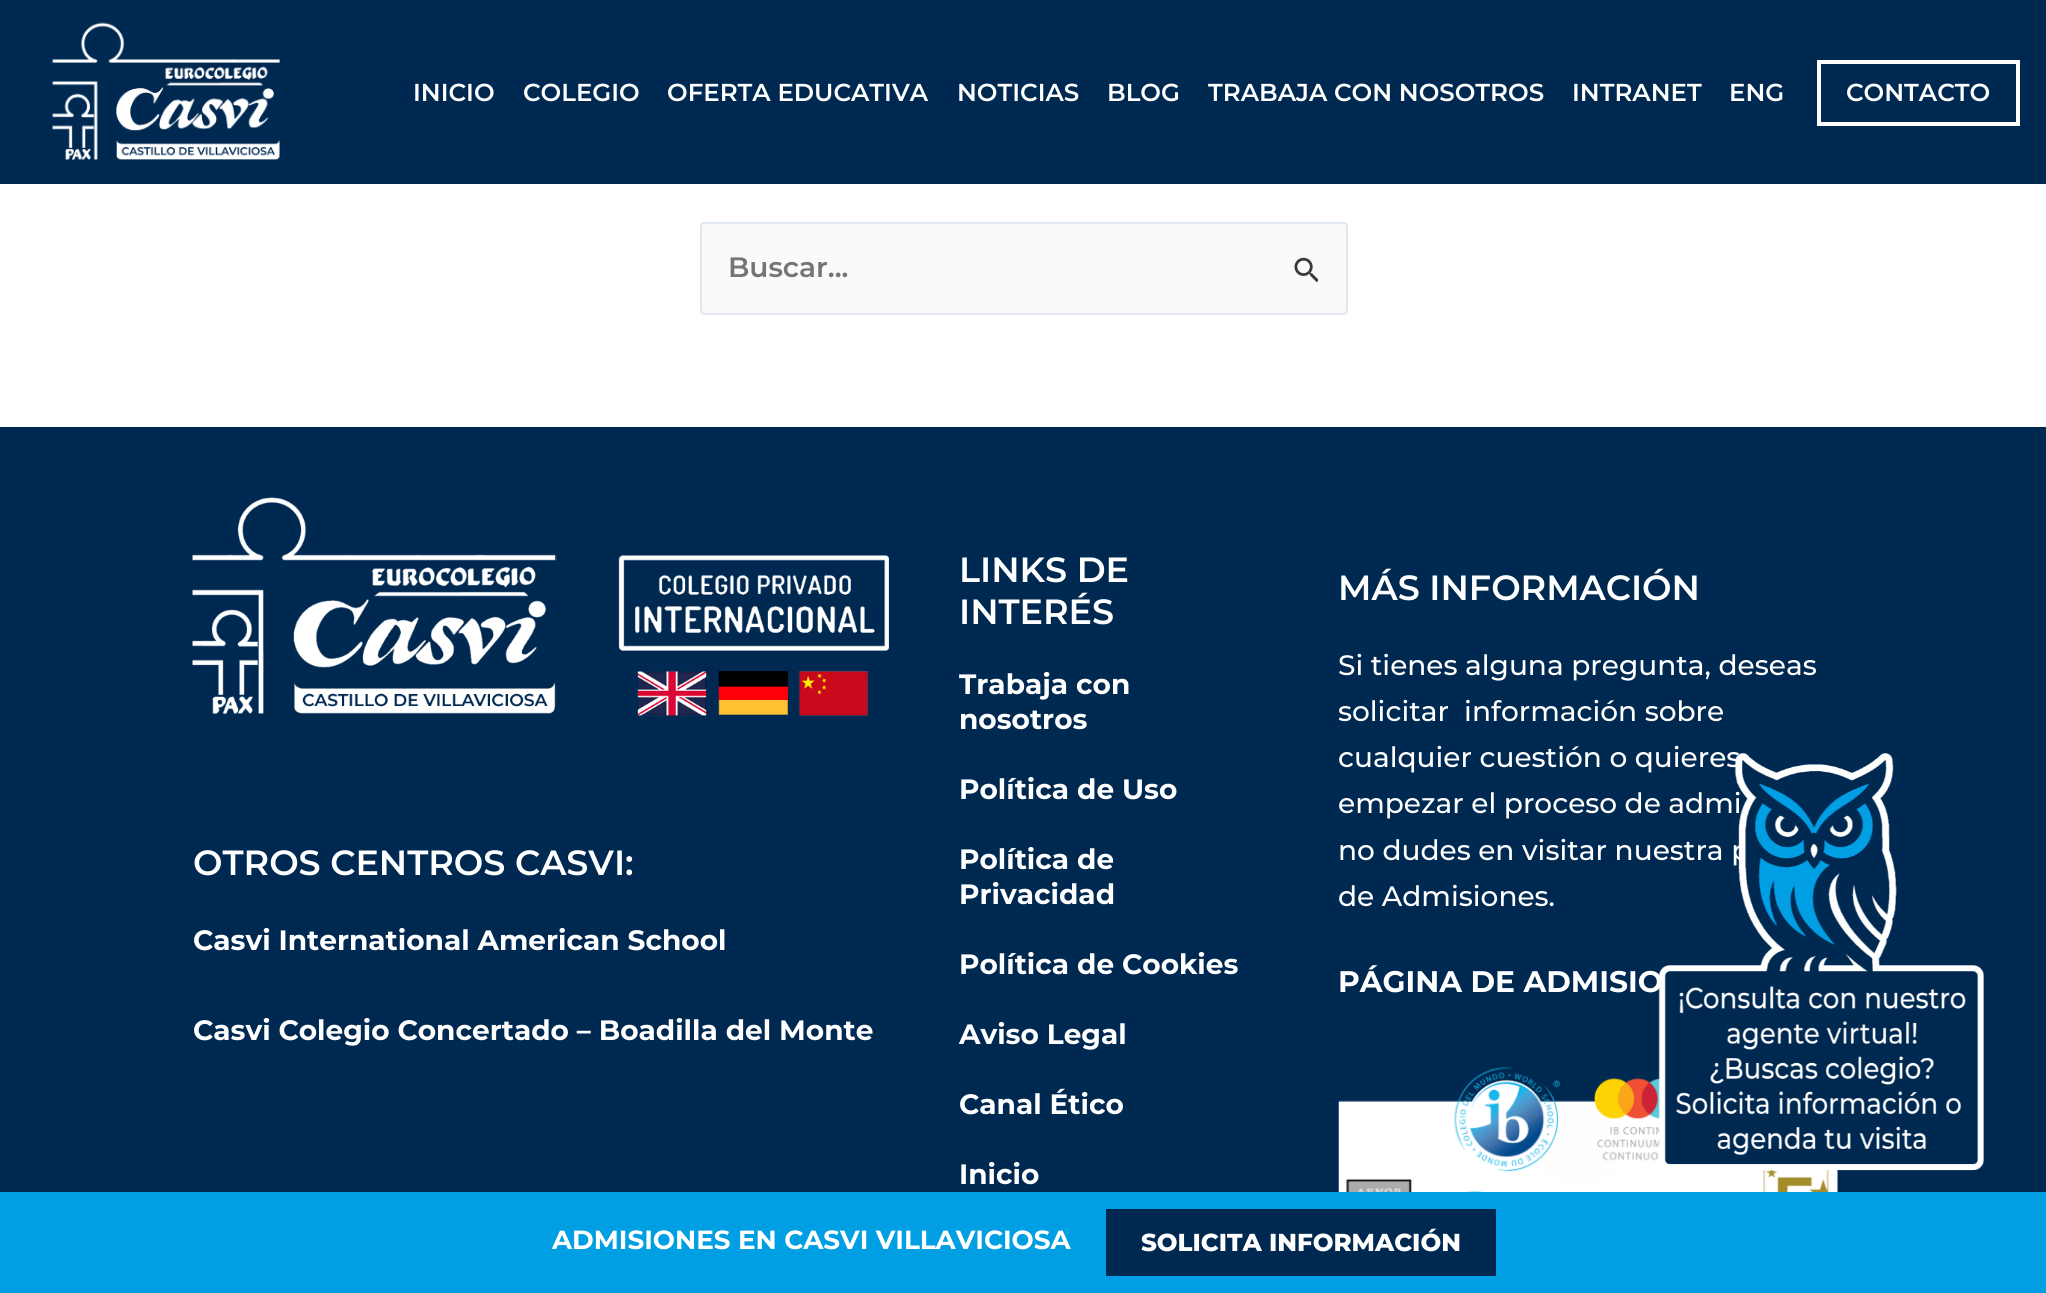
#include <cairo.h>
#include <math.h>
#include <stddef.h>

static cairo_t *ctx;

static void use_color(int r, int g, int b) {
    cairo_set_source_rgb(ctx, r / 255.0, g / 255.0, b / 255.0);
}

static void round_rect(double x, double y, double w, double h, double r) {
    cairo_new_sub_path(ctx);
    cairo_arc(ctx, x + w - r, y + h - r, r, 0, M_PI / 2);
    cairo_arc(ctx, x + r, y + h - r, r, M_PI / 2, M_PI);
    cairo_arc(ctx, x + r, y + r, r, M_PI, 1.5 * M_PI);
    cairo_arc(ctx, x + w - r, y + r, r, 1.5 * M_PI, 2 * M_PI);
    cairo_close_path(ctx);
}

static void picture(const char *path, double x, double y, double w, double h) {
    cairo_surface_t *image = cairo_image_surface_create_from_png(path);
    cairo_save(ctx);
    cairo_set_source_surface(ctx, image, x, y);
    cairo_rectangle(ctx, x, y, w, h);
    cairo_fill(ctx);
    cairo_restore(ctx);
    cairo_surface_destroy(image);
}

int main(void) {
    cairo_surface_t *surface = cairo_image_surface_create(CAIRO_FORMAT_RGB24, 2046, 1293);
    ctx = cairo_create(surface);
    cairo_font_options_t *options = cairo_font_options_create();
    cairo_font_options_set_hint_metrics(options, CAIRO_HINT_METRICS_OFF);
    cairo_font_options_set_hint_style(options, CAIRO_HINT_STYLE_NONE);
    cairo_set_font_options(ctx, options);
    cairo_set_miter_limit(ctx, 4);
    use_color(255, 255, 255);
    cairo_paint(ctx);
    use_color(0, 41, 81);
    cairo_rectangle(ctx, 0, 0, 2046, 184);
    cairo_fill(ctx);
    picture("img1.png", 52, 22, 228, 139);
    cairo_select_font_face(ctx, "Montserrat SemiBold", CAIRO_FONT_SLANT_NORMAL, CAIRO_FONT_WEIGHT_NORMAL);
    cairo_set_font_size(ctx, 24.5);
    use_color(255, 255, 255);
    cairo_move_to(ctx, 413, 101);
    cairo_show_text(ctx, "INICIO");
    cairo_move_to(ctx, 523, 101);
    cairo_show_text(ctx, "COLEGIO");
    cairo_move_to(ctx, 667, 101);
    cairo_show_text(ctx, "OFERTA EDUCATIVA");
    cairo_move_to(ctx, 957, 101);
    cairo_show_text(ctx, "NOTICIAS");
    cairo_move_to(ctx, 1107, 101);
    cairo_show_text(ctx, "BLOG");
    cairo_move_to(ctx, 1208, 101);
    cairo_show_text(ctx, "TRABAJA CON NOSOTROS");
    cairo_move_to(ctx, 1572, 101);
    cairo_show_text(ctx, "INTRANET");
    cairo_move_to(ctx, 1729, 101);
    cairo_show_text(ctx, "ENG");
    cairo_rectangle(ctx, 1819, 62, 199, 62);
    cairo_set_line_width(ctx, 4);
    cairo_stroke(ctx);
    cairo_move_to(ctx, 1846, 101);
    cairo_show_text(ctx, "CONTACTO");
    use_color(0, 159, 227);
    cairo_rectangle(ctx, 0, 1192, 2046, 101);
    cairo_fill(ctx);
    cairo_select_font_face(ctx, "Montserrat", CAIRO_FONT_SLANT_NORMAL, CAIRO_FONT_WEIGHT_BOLD);
    cairo_set_font_size(ctx, 26.25);
    use_color(255, 255, 255);
    cairo_move_to(ctx, 552, 1249);
    cairo_show_text(ctx, "ADMISIONES EN CASVI VILLAVICIOSA");
    use_color(0, 41, 81);
    cairo_rectangle(ctx, 1106, 1209, 390, 67);
    cairo_fill(ctx);
    cairo_select_font_face(ctx, "Montserrat ExtraBold", CAIRO_FONT_SLANT_NORMAL, CAIRO_FONT_WEIGHT_NORMAL);
    cairo_set_font_size(ctx, 24.5);
    use_color(255, 255, 255);
    cairo_move_to(ctx, 1141, 1251);
    cairo_show_text(ctx, "SOLICITA INFORMACIÓN");
    use_color(250, 250, 250);
    round_rect(701, 223, 646, 91, 3);
    cairo_fill_preserve(ctx);
    use_color(226, 232, 240);
    cairo_set_line_width(ctx, 2);
    cairo_stroke(ctx);
    cairo_select_font_face(ctx, "Montserrat SemiBold", CAIRO_FONT_SLANT_NORMAL, CAIRO_FONT_WEIGHT_NORMAL);
    cairo_set_font_size(ctx, 28);
    use_color(117, 117, 117);
    cairo_move_to(ctx, 728, 277);
    cairo_show_text(ctx, "Buscar...");
    picture("img2.png", 1294, 257, 24, 26);
    use_color(0, 41, 81);
    cairo_rectangle(ctx, 0, 427, 2046, 765);
    cairo_fill(ctx);
    picture("img3.png", 192, 497, 697, 219);
    cairo_set_font_size(ctx, 35);
    use_color(255, 255, 255);
    cairo_move_to(ctx, 193, 875);
    cairo_show_text(ctx, "OTROS CENTROS CASVI:");
    cairo_select_font_face(ctx, "Montserrat", CAIRO_FONT_SLANT_NORMAL, CAIRO_FONT_WEIGHT_BOLD);
    cairo_set_font_size(ctx, 28);
    cairo_move_to(ctx, 193, 950);
    cairo_show_text(ctx, "Casvi International American School");
    cairo_move_to(ctx, 193, 1040);
    cairo_show_text(ctx, "Casvi Colegio Concertado – Boadilla del Monte");
    cairo_select_font_face(ctx, "Montserrat SemiBold", CAIRO_FONT_SLANT_NORMAL, CAIRO_FONT_WEIGHT_NORMAL);
    cairo_set_font_size(ctx, 35);
    cairo_move_to(ctx, 959, 582);
    cairo_show_text(ctx, "LINKS DE");
    cairo_move_to(ctx, 959, 624);
    cairo_show_text(ctx, "INTERÉS");
    cairo_select_font_face(ctx, "Montserrat", CAIRO_FONT_SLANT_NORMAL, CAIRO_FONT_WEIGHT_BOLD);
    cairo_set_font_size(ctx, 28);
    cairo_move_to(ctx, 959, 694);
    cairo_show_text(ctx, "Trabaja con");
    cairo_move_to(ctx, 959, 729);
    cairo_show_text(ctx, "nosotros");
    cairo_move_to(ctx, 959, 799);
    cairo_show_text(ctx, "Política de Uso");
    cairo_move_to(ctx, 959, 869);
    cairo_show_text(ctx, "Política de");
    cairo_move_to(ctx, 959, 904);
    cairo_show_text(ctx, "Privacidad");
    cairo_move_to(ctx, 959, 974);
    cairo_show_text(ctx, "Política de Cookies");
    cairo_move_to(ctx, 959, 1044);
    cairo_show_text(ctx, "Aviso Legal");
    cairo_move_to(ctx, 959, 1114);
    cairo_show_text(ctx, "Canal Ético");
    cairo_move_to(ctx, 959, 1184);
    cairo_show_text(ctx, "Inicio");
    cairo_select_font_face(ctx, "Montserrat SemiBold", CAIRO_FONT_SLANT_NORMAL, CAIRO_FONT_WEIGHT_NORMAL);
    cairo_set_font_size(ctx, 35);
    cairo_move_to(ctx, 1338, 600);
    cairo_show_text(ctx, "MÁS INFORMACIÓN");
    cairo_select_font_face(ctx, "Montserrat Medium", CAIRO_FONT_SLANT_NORMAL, CAIRO_FONT_WEIGHT_NORMAL);
    cairo_set_font_size(ctx, 28);
    cairo_move_to(ctx, 1338, 675);
    cairo_show_text(ctx, "Si tienes alguna pregunta, deseas");
    cairo_move_to(ctx, 1338, 721);
    cairo_show_text(ctx, "solicitar  información sobre");
    cairo_move_to(ctx, 1338, 767);
    cairo_show_text(ctx, "cualquier cuestión o quieres");
    cairo_move_to(ctx, 1338, 813);
    cairo_show_text(ctx, "empezar el proceso de admi");
    cairo_move_to(ctx, 1338, 860);
    cairo_show_text(ctx, "no dudes en visitar nuestra p");
    cairo_move_to(ctx, 1338, 906);
    cairo_show_text(ctx, "de Admisiones.");
    cairo_select_font_face(ctx, "Montserrat", CAIRO_FONT_SLANT_NORMAL, CAIRO_FONT_WEIGHT_BOLD);
    cairo_set_font_size(ctx, 29.75);
    cairo_move_to(ctx, 1338, 992);
    cairo_show_text(ctx, "PÁGINA DE ADMISIO");
    picture("img4.png", 1338, 1067, 500, 125);
    picture("img5.png", 1658, 753, 326, 418);
    cairo_surface_write_to_png(surface, "result.png");
    cairo_font_options_destroy(options);
    cairo_destroy(ctx);
    cairo_surface_destroy(surface);
    return 0;
}
